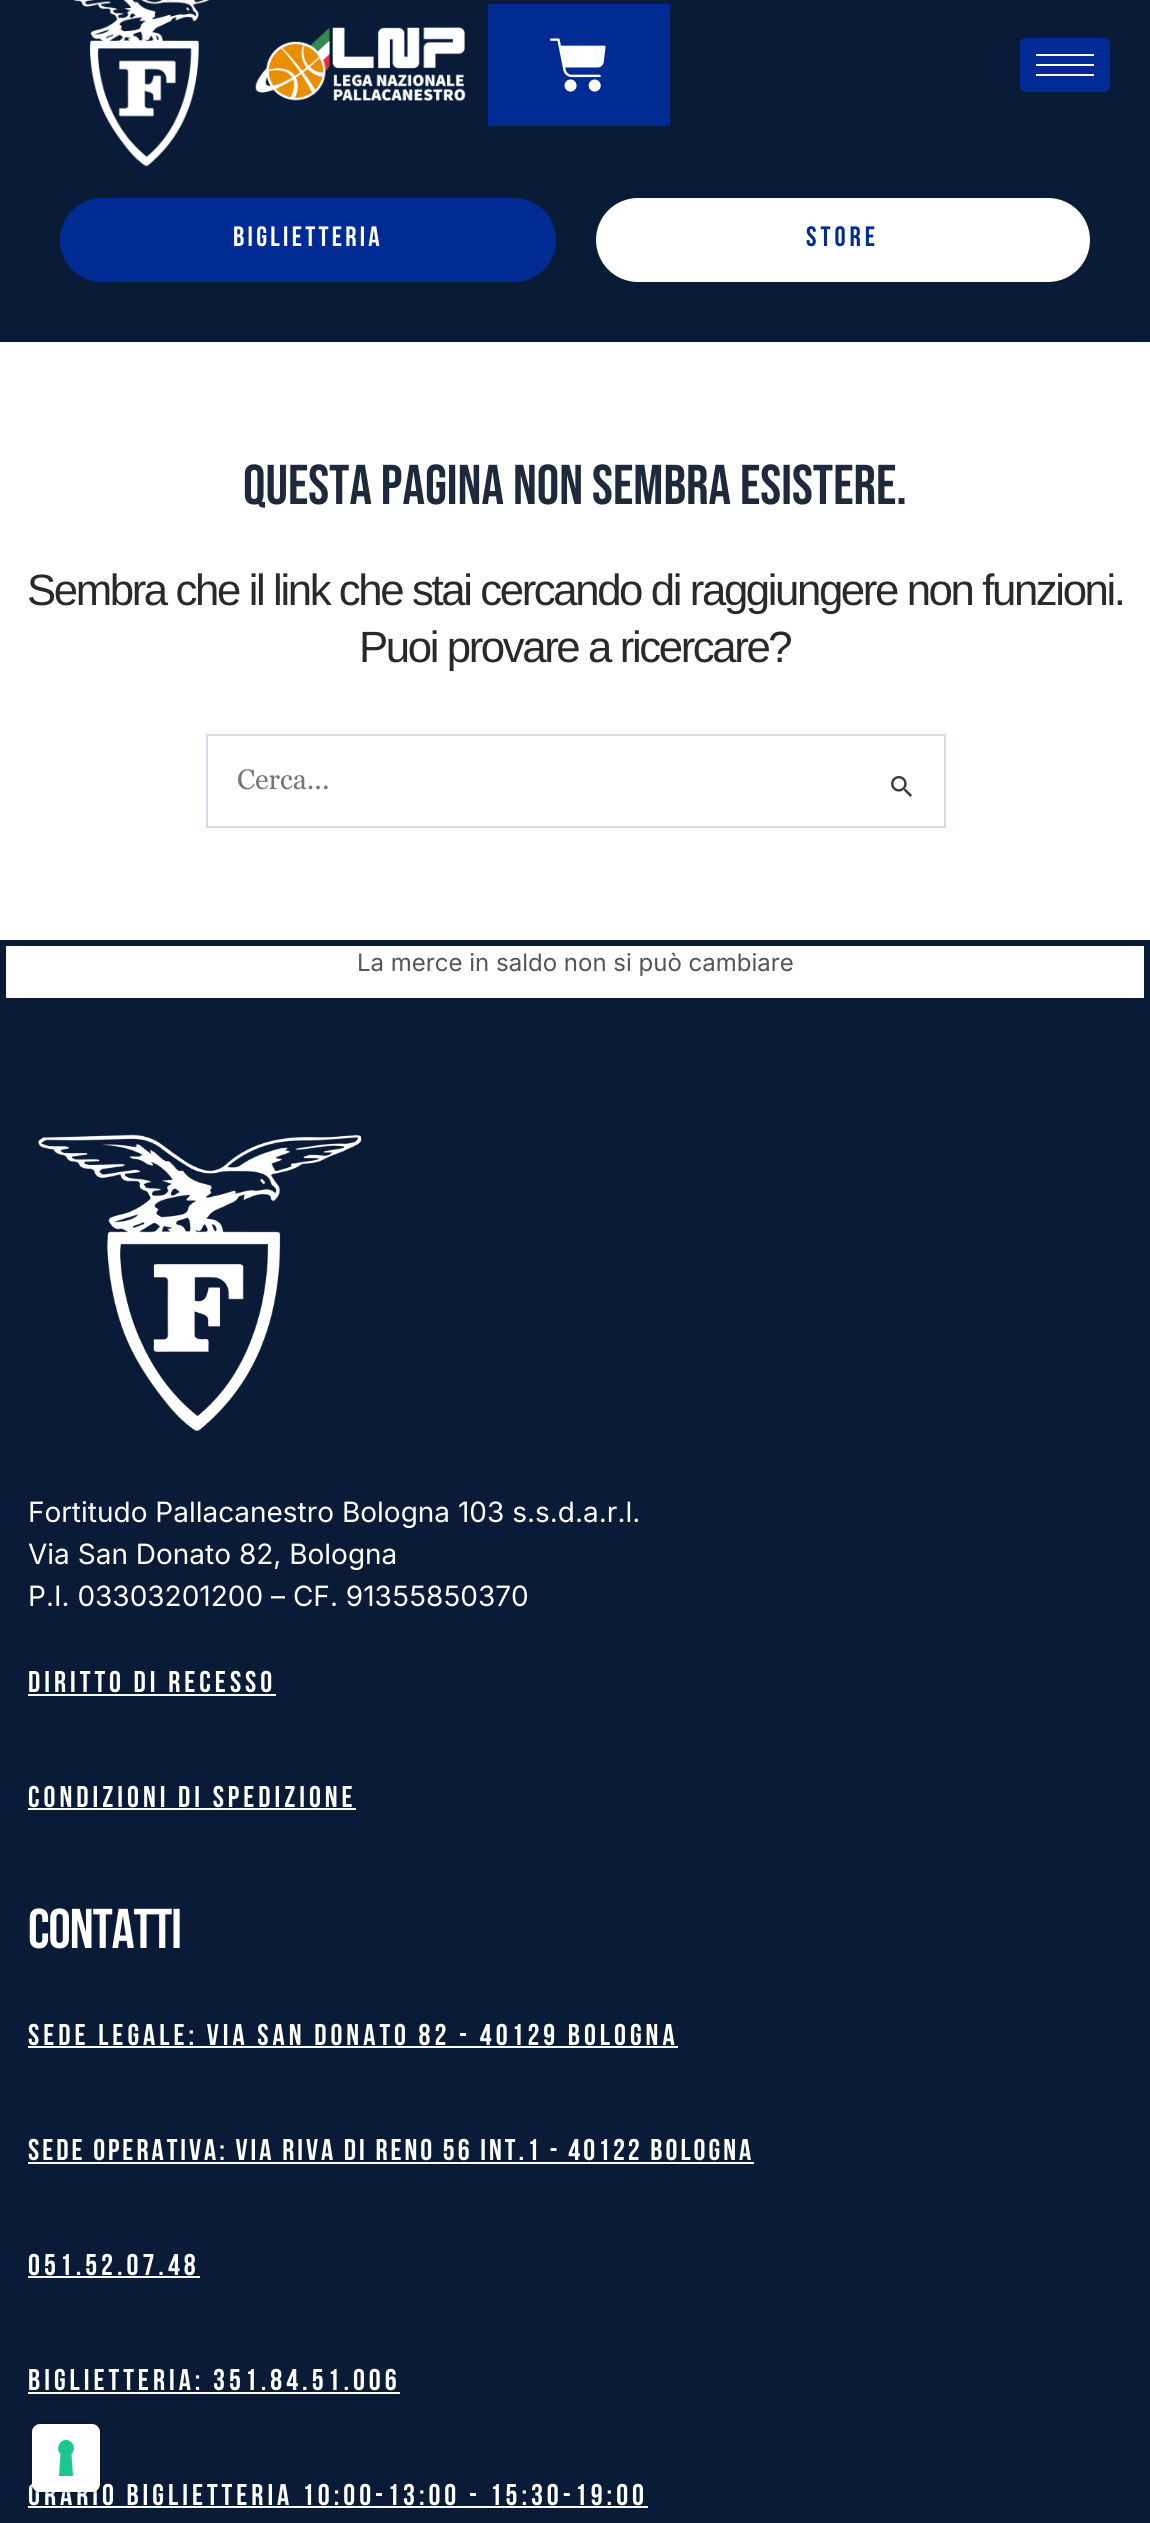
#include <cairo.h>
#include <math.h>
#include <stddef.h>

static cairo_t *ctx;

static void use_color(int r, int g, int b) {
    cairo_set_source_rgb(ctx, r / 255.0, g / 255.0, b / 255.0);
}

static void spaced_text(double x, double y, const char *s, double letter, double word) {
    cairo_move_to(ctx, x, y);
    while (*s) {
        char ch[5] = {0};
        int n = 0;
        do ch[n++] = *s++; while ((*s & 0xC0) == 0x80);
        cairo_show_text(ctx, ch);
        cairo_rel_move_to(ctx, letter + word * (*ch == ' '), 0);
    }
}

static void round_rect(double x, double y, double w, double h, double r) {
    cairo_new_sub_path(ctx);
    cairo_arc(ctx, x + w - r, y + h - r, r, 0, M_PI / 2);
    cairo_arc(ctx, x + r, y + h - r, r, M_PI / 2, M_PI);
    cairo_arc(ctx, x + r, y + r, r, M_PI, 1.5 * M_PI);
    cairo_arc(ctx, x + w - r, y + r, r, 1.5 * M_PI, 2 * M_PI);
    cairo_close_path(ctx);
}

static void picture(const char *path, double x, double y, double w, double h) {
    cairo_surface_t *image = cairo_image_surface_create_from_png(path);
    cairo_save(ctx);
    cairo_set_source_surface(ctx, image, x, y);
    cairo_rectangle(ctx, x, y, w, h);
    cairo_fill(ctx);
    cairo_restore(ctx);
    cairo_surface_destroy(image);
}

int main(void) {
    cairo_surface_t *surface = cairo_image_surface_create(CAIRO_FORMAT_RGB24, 1150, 2523);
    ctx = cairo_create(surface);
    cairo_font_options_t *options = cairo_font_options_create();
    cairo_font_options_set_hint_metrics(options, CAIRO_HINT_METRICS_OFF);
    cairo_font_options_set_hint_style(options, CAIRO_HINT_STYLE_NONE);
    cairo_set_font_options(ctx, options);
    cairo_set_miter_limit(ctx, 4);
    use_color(255, 255, 255);
    cairo_paint(ctx);
    use_color(10, 27, 55);
    cairo_rectangle(ctx, 0, 0, 1150, 342);
    cairo_fill(ctx);
    picture("img1.png", 74, 0, 136, 167);
    picture("img2.png", 255, 27, 211, 74);
    use_color(0, 43, 149);
    cairo_rectangle(ctx, 488, 4, 182, 122);
    cairo_fill(ctx);
    picture("img3.png", 550, 38, 56, 54);
    round_rect(1020, 38, 90, 54, 6);
    cairo_fill(ctx);
    use_color(255, 255, 255);
    cairo_rectangle(ctx, 1036, 54, 58, 2);
    cairo_fill(ctx);
    cairo_rectangle(ctx, 1036, 64, 58, 2);
    cairo_fill(ctx);
    cairo_rectangle(ctx, 1036, 74, 58, 2);
    cairo_fill(ctx);
    use_color(0, 43, 149);
    round_rect(60, 198, 496, 84, 42);
    cairo_fill(ctx);
    cairo_select_font_face(ctx, "Bebas Neue", CAIRO_FONT_SLANT_NORMAL, CAIRO_FONT_WEIGHT_BOLD);
    cairo_set_font_size(ctx, 28);
    use_color(255, 255, 255);
    spaced_text(233, 246, "BIGLIETTERIA", 3.25, 0);
    round_rect(596, 198, 494, 84, 42);
    cairo_fill(ctx);
    use_color(0, 43, 149);
    spaced_text(806, 246, "STORE", 4, 0);
    cairo_select_font_face(ctx, "Bebas Neue", CAIRO_FONT_SLANT_NORMAL, CAIRO_FONT_WEIGHT_NORMAL);
    cairo_set_font_size(ctx, 56);
    use_color(30, 41, 59);
    cairo_move_to(ctx, 243, 504);
    cairo_show_text(ctx, "Questa pagina non sembra esistere.");
    cairo_select_font_face(ctx, "Liberation Sans", CAIRO_FONT_SLANT_NORMAL, CAIRO_FONT_WEIGHT_NORMAL);
    cairo_set_font_size(ctx, 43.75);
    use_color(41, 41, 41);
    spaced_text(27, 605, "Sembra che il link che stai cercando di raggiungere non funzioni.", -2.4, 0);
    spaced_text(359, 662, "Puoi provare a ricercare?", -2.4, 0);
    cairo_rectangle(ctx, 207, 735, 738, 92);
    use_color(213, 219, 233);
    cairo_stroke(ctx);
    cairo_select_font_face(ctx, "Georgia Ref", CAIRO_FONT_SLANT_NORMAL, CAIRO_FONT_WEIGHT_NORMAL);
    cairo_set_font_size(ctx, 28);
    use_color(117, 117, 117);
    cairo_move_to(ctx, 237, 789);
    cairo_show_text(ctx, "Cerca...");
    picture("img4.png", 891, 775, 21, 22);
    cairo_rectangle(ctx, 3, 943, 1144, 58);
    use_color(10, 27, 55);
    cairo_set_line_width(ctx, 6);
    cairo_stroke(ctx);
    cairo_select_font_face(ctx, "Inter", CAIRO_FONT_SLANT_NORMAL, CAIRO_FONT_WEIGHT_NORMAL);
    cairo_set_font_size(ctx, 24);
    use_color(85, 85, 85);
    cairo_move_to(ctx, 357, 971);
    cairo_show_text(ctx, "La merce in saldo non si può cambiare");
    use_color(10, 27, 55);
    cairo_rectangle(ctx, 0, 1004, 1150, 1519);
    cairo_fill(ctx);
    picture("img5.png", 38, 1134, 324, 297);
    cairo_set_font_size(ctx, 28);
    use_color(255, 255, 255);
    cairo_move_to(ctx, 28, 1522);
    cairo_show_text(ctx, "Fortitudo Pallacanestro Bologna 103 s.s.d.a.r.l.");
    cairo_move_to(ctx, 28, 1564);
    cairo_show_text(ctx, "Via San Donato 82, Bologna");
    cairo_move_to(ctx, 28, 1606);
    cairo_show_text(ctx, "P.I. 03303201200 – CF. 91355850370");
    cairo_select_font_face(ctx, "Bebas Neue", CAIRO_FONT_SLANT_NORMAL, CAIRO_FONT_WEIGHT_BOLD);
    cairo_set_font_size(ctx, 30);
    spaced_text(28, 1692, "Diritto di recesso", 4, 0);
    cairo_rectangle(ctx, 28, 1694, 248, 2);
    cairo_fill(ctx);
    spaced_text(28, 1807, "Condizioni di spedizione", 4, 0);
    cairo_rectangle(ctx, 28, 1808, 328, 2);
    cairo_fill(ctx);
    cairo_set_font_size(ctx, 56);
    spaced_text(28, 1948, "CONTATTI", -1, 0);
    cairo_set_font_size(ctx, 30);
    spaced_text(28, 2045, "Sede legale: Via San Donato 82 - 40129 BOLOGNA", 4, 0);
    cairo_rectangle(ctx, 28, 2046, 650, 2);
    cairo_fill(ctx);
    spaced_text(28, 2160, "Sede operativa: Via Riva di Reno 56 int.1 - 40122 BOLOGNA", 3, 0);
    cairo_rectangle(ctx, 28, 2162, 726, 2);
    cairo_fill(ctx);
    spaced_text(28, 2275, "051.52.07.48", 4, 0);
    cairo_rectangle(ctx, 28, 2276, 172, 2);
    cairo_fill(ctx);
    spaced_text(28, 2390, "Biglietteria: 351.84.51.006", 4, 0);
    cairo_rectangle(ctx, 28, 2392, 372, 2);
    cairo_fill(ctx);
    spaced_text(28, 2505, "Orario biglietteria 10:00-13:00 - 15:30-19:00", 4, 0);
    cairo_rectangle(ctx, 28, 2506, 620, 2);
    cairo_fill(ctx);
    round_rect(31, 2423, 70, 70, 9);
    cairo_set_source_rgba(ctx, 0, 0, 0, 0.15);
    cairo_set_line_width(ctx, 2);
    cairo_stroke(ctx);
    use_color(255, 255, 255);
    round_rect(32, 2424, 68, 68, 8);
    cairo_fill(ctx);
    use_color(28, 198, 145);
    cairo_set_fill_rule(ctx, CAIRO_FILL_RULE_EVEN_ODD);
    cairo_new_path(ctx);
    cairo_move_to(ctx, 66, 2440);
    cairo_curve_to(ctx, 73, 2440, 76.5, 2449.5, 71.5, 2454);
    cairo_line_to(ctx, 73, 2476);
    cairo_line_to(ctx, 59, 2476);
    cairo_line_to(ctx, 60.5, 2454);
    cairo_curve_to(ctx, 55.5, 2449.5, 59, 2440, 66, 2440);
    cairo_close_path(ctx);
    cairo_fill(ctx);
    cairo_surface_write_to_png(surface, "result.png");
    cairo_font_options_destroy(options);
    cairo_destroy(ctx);
    cairo_surface_destroy(surface);
    return 0;
}
